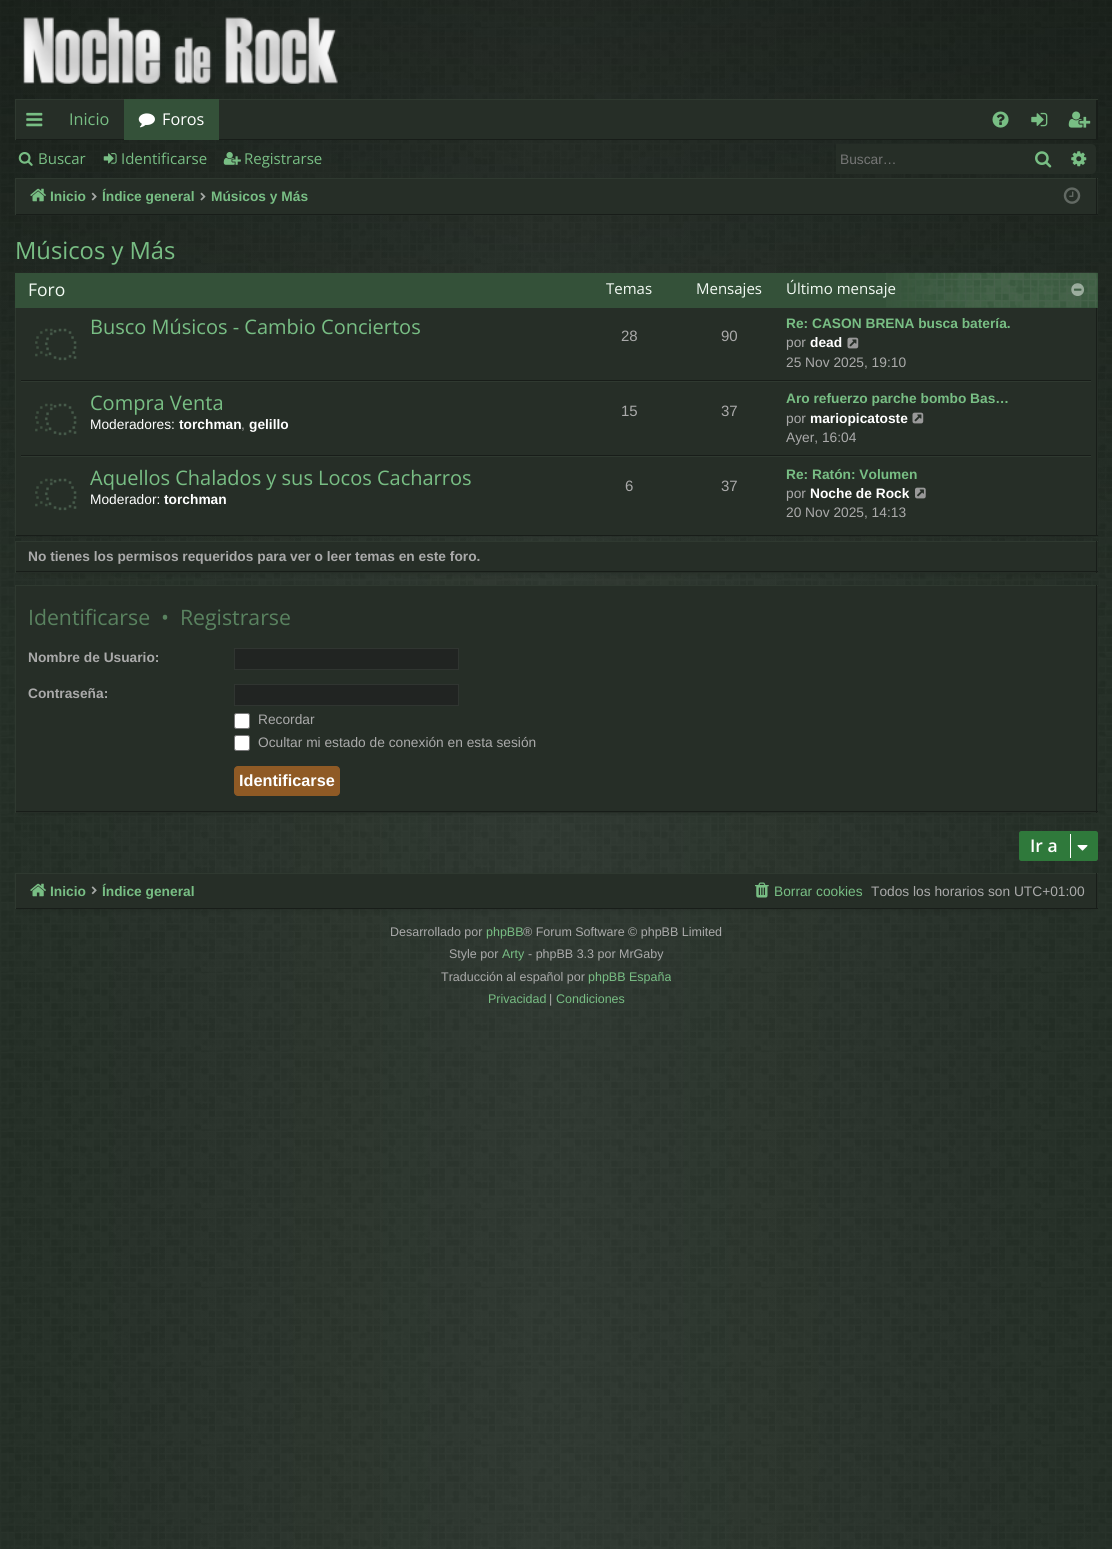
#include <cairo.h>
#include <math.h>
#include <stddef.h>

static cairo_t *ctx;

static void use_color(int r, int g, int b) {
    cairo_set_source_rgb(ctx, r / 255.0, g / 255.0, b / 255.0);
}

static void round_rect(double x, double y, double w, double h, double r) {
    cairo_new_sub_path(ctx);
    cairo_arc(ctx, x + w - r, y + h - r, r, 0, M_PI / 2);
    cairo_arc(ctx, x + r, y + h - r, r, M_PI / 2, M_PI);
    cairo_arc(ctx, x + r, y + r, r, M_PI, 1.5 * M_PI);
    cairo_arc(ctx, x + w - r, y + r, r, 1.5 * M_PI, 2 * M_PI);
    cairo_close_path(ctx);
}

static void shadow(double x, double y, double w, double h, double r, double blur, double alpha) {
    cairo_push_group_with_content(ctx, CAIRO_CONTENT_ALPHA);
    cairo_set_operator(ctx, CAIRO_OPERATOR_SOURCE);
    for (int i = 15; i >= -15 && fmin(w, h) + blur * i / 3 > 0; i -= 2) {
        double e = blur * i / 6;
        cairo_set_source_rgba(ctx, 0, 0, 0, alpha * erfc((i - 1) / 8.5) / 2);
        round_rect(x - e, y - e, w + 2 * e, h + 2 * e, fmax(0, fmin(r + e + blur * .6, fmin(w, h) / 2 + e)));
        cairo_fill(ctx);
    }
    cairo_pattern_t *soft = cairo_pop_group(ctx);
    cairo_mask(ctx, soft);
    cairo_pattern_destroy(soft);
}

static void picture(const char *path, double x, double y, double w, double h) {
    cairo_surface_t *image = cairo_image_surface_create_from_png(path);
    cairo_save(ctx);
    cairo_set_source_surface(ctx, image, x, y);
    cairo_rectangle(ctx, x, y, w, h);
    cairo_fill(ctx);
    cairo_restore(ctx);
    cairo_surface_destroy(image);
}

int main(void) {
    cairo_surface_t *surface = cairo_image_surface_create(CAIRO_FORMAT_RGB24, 1112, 1549);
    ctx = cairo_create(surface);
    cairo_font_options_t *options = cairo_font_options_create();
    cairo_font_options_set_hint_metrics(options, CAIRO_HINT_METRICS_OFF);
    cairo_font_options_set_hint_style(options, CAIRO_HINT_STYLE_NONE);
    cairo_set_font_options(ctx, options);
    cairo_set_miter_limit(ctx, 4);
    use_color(30, 40, 32);
    cairo_paint(ctx);
    picture("img1.png", 0, 0, 1112, 1549);
    picture("img2.png", 23, 16, 315, 69);
    use_color(38, 46, 39);
    cairo_rectangle(ctx, 16, 100, 1080, 39);
    cairo_fill(ctx);
    cairo_save(ctx);
    cairo_rectangle(ctx, 15, 99, 1083, 41);
    cairo_clip(ctx);
    use_color(24, 29, 25);
    cairo_set_fill_rule(ctx, CAIRO_FILL_RULE_EVEN_ODD);
    cairo_new_path(ctx);
    cairo_move_to(ctx, -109, -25);
    cairo_line_to(ctx, 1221, -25);
    cairo_line_to(ctx, 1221, 264);
    cairo_line_to(ctx, -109, 264);
    cairo_close_path(ctx);
    cairo_move_to(ctx, 14, 98);
    cairo_line_to(ctx, 1096, 98);
    cairo_line_to(ctx, 1096, 139);
    cairo_line_to(ctx, 14, 139);
    cairo_close_path(ctx);
    cairo_fill(ctx);
    use_color(47, 57, 48);
    cairo_new_path(ctx);
    cairo_move_to(ctx, -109, -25);
    cairo_line_to(ctx, 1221, -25);
    cairo_line_to(ctx, 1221, 264);
    cairo_line_to(ctx, -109, 264);
    cairo_close_path(ctx);
    cairo_move_to(ctx, 16, 100);
    cairo_line_to(ctx, 1099, 100);
    cairo_line_to(ctx, 1099, 141);
    cairo_line_to(ctx, 16, 141);
    cairo_close_path(ctx);
    cairo_fill(ctx);
    cairo_restore(ctx);
    picture("img3.png", 26, 112, 17, 15);
    cairo_select_font_face(ctx, "Open Sans", CAIRO_FONT_SLANT_NORMAL, CAIRO_FONT_WEIGHT_NORMAL);
    cairo_set_font_size(ctx, 16.25);
    use_color(120, 190, 132);
    cairo_move_to(ctx, 69, 125);
    cairo_show_text(ctx, "Inicio");
    use_color(52, 81, 57);
    cairo_rectangle(ctx, 124, 99, 95, 41);
    cairo_fill(ctx);
    picture("img4.png", 138, 113, 17, 15);
    use_color(255, 255, 255);
    cairo_move_to(ctx, 162, 125);
    cairo_show_text(ctx, "Foros");
    picture("img5.png", 992, 111, 17, 17);
    picture("img6.png", 1031, 112, 17, 15);
    picture("img7.png", 1068, 111, 23, 17);
    picture("img8.png", 18, 152, 15, 14);
    cairo_set_font_size(ctx, 15);
    use_color(120, 190, 132);
    cairo_move_to(ctx, 38, 164);
    cairo_show_text(ctx, "Buscar");
    picture("img9.png", 103, 153, 14, 11);
    cairo_move_to(ctx, 121, 164);
    cairo_show_text(ctx, "Identificarse");
    picture("img10.png", 223, 152, 18, 13);
    cairo_move_to(ctx, 244, 164);
    cairo_show_text(ctx, "Registrarse");
    use_color(38, 46, 39);
    cairo_rectangle(ctx, 836, 144, 188, 30);
    cairo_fill(ctx);
    cairo_select_font_face(ctx, "Liberation Sans", CAIRO_FONT_SLANT_NORMAL, CAIRO_FONT_WEIGHT_NORMAL);
    cairo_set_font_size(ctx, 13.75);
    use_color(117, 118, 117);
    cairo_move_to(ctx, 840, 164);
    cairo_show_text(ctx, "Buscar…");
    use_color(38, 46, 39);
    cairo_rectangle(ctx, 1024, 144, 37, 30);
    cairo_fill(ctx);
    picture("img11.png", 1035, 151, 17, 17);
    cairo_new_path(ctx);
    cairo_move_to(ctx, 1061, 144);
    cairo_line_to(ctx, 1091, 144);
    cairo_curve_to(ctx, 1094, 144, 1096, 146, 1096, 149);
    cairo_line_to(ctx, 1096, 169);
    cairo_curve_to(ctx, 1096, 172, 1094, 174, 1091, 174);
    cairo_line_to(ctx, 1061, 174);
    cairo_close_path(ctx);
    cairo_fill(ctx);
    picture("img12.png", 1071, 151, 16, 16);
    cairo_rectangle(ctx, 16, 179, 1082, 35);
    cairo_fill(ctx);
    use_color(47, 57, 48);
    cairo_rectangle(ctx, 15, 178, 1083, 1);
    cairo_fill(ctx);
    use_color(24, 29, 25);
    cairo_rectangle(ctx, 1096, 178, 1, 37);
    cairo_fill(ctx);
    cairo_rectangle(ctx, 15, 214, 1083, 1);
    cairo_fill(ctx);
    use_color(47, 57, 48);
    cairo_rectangle(ctx, 15, 178, 1, 37);
    cairo_fill(ctx);
    picture("img13.png", 30, 188, 16, 14);
    cairo_select_font_face(ctx, "Liberation Sans", CAIRO_FONT_SLANT_NORMAL, CAIRO_FONT_WEIGHT_BOLD);
    use_color(120, 190, 132);
    cairo_move_to(ctx, 50, 201);
    cairo_show_text(ctx, "Inicio");
    picture("img14.png", 91, 192, 6, 9);
    cairo_move_to(ctx, 102, 201);
    cairo_show_text(ctx, "Índice general");
    picture("img15.png", 200, 192, 6, 9);
    cairo_move_to(ctx, 211, 201);
    cairo_show_text(ctx, "Músicos y Más");
    picture("img16.png", 1063, 187, 18, 17);
    cairo_select_font_face(ctx, "Open Sans", CAIRO_FONT_SLANT_NORMAL, CAIRO_FONT_WEIGHT_NORMAL);
    cairo_set_font_size(ctx, 23.75);
    cairo_move_to(ctx, 15, 259);
    cairo_show_text(ctx, "Músicos y Más");
    use_color(0, 0, 0);
    shadow(21, 285, 1070, 251, 0, 3, 0.2);
    use_color(38, 46, 39);
    cairo_rectangle(ctx, 16, 308, 1082, 227);
    cairo_fill(ctx);
    use_color(24, 29, 25);
    cairo_rectangle(ctx, 1096, 308, 1, 228);
    cairo_fill(ctx);
    cairo_rectangle(ctx, 15, 535, 1083, 1);
    cairo_fill(ctx);
    use_color(47, 57, 48);
    cairo_rectangle(ctx, 15, 308, 1, 228);
    cairo_fill(ctx);
    use_color(52, 81, 57);
    cairo_rectangle(ctx, 15, 273, 1083, 35);
    cairo_fill(ctx);
    picture("img17.png", 886, 272, 212, 36);
    cairo_set_font_size(ctx, 17.5);
    use_color(243, 250, 244);
    cairo_move_to(ctx, 28, 296);
    cairo_show_text(ctx, "Foro");
    cairo_set_font_size(ctx, 15);
    cairo_move_to(ctx, 606, 294);
    cairo_show_text(ctx, "Temas");
    cairo_move_to(ctx, 696, 294);
    cairo_show_text(ctx, "Mensajes");
    cairo_move_to(ctx, 786, 294);
    cairo_show_text(ctx, "Último mensaje");
    picture("img18.png", 1071, 283, 14, 13);
    use_color(24, 29, 25);
    cairo_rectangle(ctx, 21, 380, 1070, 1);
    cairo_fill(ctx);
    picture("img19.png", 35, 328, 42, 33);
    cairo_set_font_size(ctx, 20);
    use_color(120, 190, 132);
    cairo_move_to(ctx, 90, 334);
    cairo_show_text(ctx, "Busco Músicos - Cambio Conciertos");
    cairo_select_font_face(ctx, "Liberation Sans", CAIRO_FONT_SLANT_NORMAL, CAIRO_FONT_WEIGHT_NORMAL);
    cairo_set_font_size(ctx, 15);
    use_color(170, 170, 170);
    cairo_move_to(ctx, 621, 341);
    cairo_show_text(ctx, "28");
    cairo_move_to(ctx, 721, 341);
    cairo_show_text(ctx, "90");
    cairo_select_font_face(ctx, "Liberation Sans", CAIRO_FONT_SLANT_NORMAL, CAIRO_FONT_WEIGHT_BOLD);
    cairo_set_font_size(ctx, 13.75);
    use_color(120, 190, 132);
    cairo_move_to(ctx, 786, 328);
    cairo_show_text(ctx, "Re: CASON BRENA busca batería.");
    cairo_select_font_face(ctx, "Liberation Sans", CAIRO_FONT_SLANT_NORMAL, CAIRO_FONT_WEIGHT_NORMAL);
    use_color(170, 170, 170);
    cairo_move_to(ctx, 786, 347);
    cairo_show_text(ctx, "por");
    cairo_select_font_face(ctx, "Liberation Sans", CAIRO_FONT_SLANT_NORMAL, CAIRO_FONT_WEIGHT_BOLD);
    use_color(255, 255, 255);
    cairo_move_to(ctx, 810, 347);
    cairo_show_text(ctx, "dead");
    picture("img20.png", 847, 337, 12, 12);
    cairo_select_font_face(ctx, "Liberation Sans", CAIRO_FONT_SLANT_NORMAL, CAIRO_FONT_WEIGHT_NORMAL);
    use_color(170, 170, 170);
    cairo_move_to(ctx, 786, 367);
    cairo_show_text(ctx, "25 Nov 2025, 19:10");
    use_color(47, 57, 48);
    cairo_rectangle(ctx, 21, 381, 1070, 1);
    cairo_fill(ctx);
    use_color(24, 29, 25);
    cairo_rectangle(ctx, 21, 455, 1070, 1);
    cairo_fill(ctx);
    picture("img19.png", 35, 403, 42, 33);
    cairo_select_font_face(ctx, "Open Sans", CAIRO_FONT_SLANT_NORMAL, CAIRO_FONT_WEIGHT_NORMAL);
    cairo_set_font_size(ctx, 20);
    use_color(120, 190, 132);
    cairo_move_to(ctx, 90, 410);
    cairo_show_text(ctx, "Compra Venta");
    cairo_select_font_face(ctx, "Liberation Sans", CAIRO_FONT_SLANT_NORMAL, CAIRO_FONT_WEIGHT_NORMAL);
    cairo_set_font_size(ctx, 13.75);
    use_color(255, 255, 255);
    cairo_move_to(ctx, 90, 429);
    cairo_show_text(ctx, "Moderadores:");
    cairo_select_font_face(ctx, "Liberation Sans", CAIRO_FONT_SLANT_NORMAL, CAIRO_FONT_WEIGHT_BOLD);
    cairo_move_to(ctx, 179, 429);
    cairo_show_text(ctx, "torchman");
    cairo_select_font_face(ctx, "Liberation Sans", CAIRO_FONT_SLANT_NORMAL, CAIRO_FONT_WEIGHT_NORMAL);
    use_color(170, 170, 170);
    cairo_move_to(ctx, 241, 429);
    cairo_show_text(ctx, ",");
    cairo_select_font_face(ctx, "Liberation Sans", CAIRO_FONT_SLANT_NORMAL, CAIRO_FONT_WEIGHT_BOLD);
    use_color(255, 255, 255);
    cairo_move_to(ctx, 249, 429);
    cairo_show_text(ctx, "gelillo");
    cairo_select_font_face(ctx, "Liberation Sans", CAIRO_FONT_SLANT_NORMAL, CAIRO_FONT_WEIGHT_NORMAL);
    cairo_set_font_size(ctx, 15);
    use_color(170, 170, 170);
    cairo_move_to(ctx, 621, 416);
    cairo_show_text(ctx, "15");
    cairo_move_to(ctx, 721, 416);
    cairo_show_text(ctx, "37");
    cairo_select_font_face(ctx, "Liberation Sans", CAIRO_FONT_SLANT_NORMAL, CAIRO_FONT_WEIGHT_BOLD);
    cairo_set_font_size(ctx, 13.75);
    use_color(120, 190, 132);
    cairo_move_to(ctx, 786, 403);
    cairo_show_text(ctx, "Aro refuerzo parche bombo Bas…");
    cairo_select_font_face(ctx, "Liberation Sans", CAIRO_FONT_SLANT_NORMAL, CAIRO_FONT_WEIGHT_NORMAL);
    use_color(170, 170, 170);
    cairo_move_to(ctx, 786, 423);
    cairo_show_text(ctx, "por");
    cairo_select_font_face(ctx, "Liberation Sans", CAIRO_FONT_SLANT_NORMAL, CAIRO_FONT_WEIGHT_BOLD);
    use_color(255, 255, 255);
    cairo_move_to(ctx, 810, 423);
    cairo_show_text(ctx, "mariopicatoste");
    picture("img20.png", 912, 412, 12, 12);
    cairo_select_font_face(ctx, "Liberation Sans", CAIRO_FONT_SLANT_NORMAL, CAIRO_FONT_WEIGHT_NORMAL);
    use_color(170, 170, 170);
    cairo_move_to(ctx, 786, 442);
    cairo_show_text(ctx, "Ayer, 16:04");
    use_color(47, 57, 48);
    cairo_rectangle(ctx, 21, 456, 1070, 1);
    cairo_fill(ctx);
    picture("img19.png", 35, 478, 42, 33);
    cairo_select_font_face(ctx, "Open Sans", CAIRO_FONT_SLANT_NORMAL, CAIRO_FONT_WEIGHT_NORMAL);
    cairo_set_font_size(ctx, 20);
    use_color(120, 190, 132);
    cairo_move_to(ctx, 90, 485);
    cairo_show_text(ctx, "Aquellos Chalados y sus Locos Cacharros");
    cairo_select_font_face(ctx, "Liberation Sans", CAIRO_FONT_SLANT_NORMAL, CAIRO_FONT_WEIGHT_NORMAL);
    cairo_set_font_size(ctx, 13.75);
    use_color(255, 255, 255);
    cairo_move_to(ctx, 90, 504);
    cairo_show_text(ctx, "Moderador:");
    cairo_select_font_face(ctx, "Liberation Sans", CAIRO_FONT_SLANT_NORMAL, CAIRO_FONT_WEIGHT_BOLD);
    cairo_move_to(ctx, 164, 504);
    cairo_show_text(ctx, "torchman");
    cairo_select_font_face(ctx, "Liberation Sans", CAIRO_FONT_SLANT_NORMAL, CAIRO_FONT_WEIGHT_NORMAL);
    cairo_set_font_size(ctx, 15);
    use_color(170, 170, 170);
    cairo_move_to(ctx, 625, 491);
    cairo_show_text(ctx, "6");
    cairo_move_to(ctx, 721, 491);
    cairo_show_text(ctx, "37");
    cairo_select_font_face(ctx, "Liberation Sans", CAIRO_FONT_SLANT_NORMAL, CAIRO_FONT_WEIGHT_BOLD);
    cairo_set_font_size(ctx, 13.75);
    use_color(120, 190, 132);
    cairo_move_to(ctx, 786, 479);
    cairo_show_text(ctx, "Re: Ratón: Volumen");
    cairo_select_font_face(ctx, "Liberation Sans", CAIRO_FONT_SLANT_NORMAL, CAIRO_FONT_WEIGHT_NORMAL);
    use_color(170, 170, 170);
    cairo_move_to(ctx, 786, 498);
    cairo_show_text(ctx, "por");
    cairo_select_font_face(ctx, "Liberation Sans", CAIRO_FONT_SLANT_NORMAL, CAIRO_FONT_WEIGHT_BOLD);
    use_color(255, 255, 255);
    cairo_move_to(ctx, 810, 498);
    cairo_show_text(ctx, "Noche de Rock");
    picture("img21.png", 915, 487, 11, 12);
    cairo_select_font_face(ctx, "Liberation Sans", CAIRO_FONT_SLANT_NORMAL, CAIRO_FONT_WEIGHT_NORMAL);
    use_color(170, 170, 170);
    cairo_move_to(ctx, 786, 517);
    cairo_show_text(ctx, "20 Nov 2025, 14:13");
    use_color(0, 0, 0);
    shadow(21, 554, 1070, 19, 0, 3, 0.2);
    use_color(38, 46, 39);
    cairo_rectangle(ctx, 16, 542, 1082, 31);
    cairo_fill(ctx);
    use_color(47, 57, 48);
    cairo_rectangle(ctx, 15, 541, 1083, 1);
    cairo_fill(ctx);
    use_color(24, 29, 25);
    cairo_rectangle(ctx, 1096, 541, 1, 32);
    cairo_fill(ctx);
    cairo_rectangle(ctx, 15, 571, 1083, 1);
    cairo_fill(ctx);
    use_color(47, 57, 48);
    cairo_rectangle(ctx, 15, 541, 1, 32);
    cairo_fill(ctx);
    cairo_select_font_face(ctx, "Liberation Sans", CAIRO_FONT_SLANT_NORMAL, CAIRO_FONT_WEIGHT_BOLD);
    use_color(170, 170, 170);
    cairo_move_to(ctx, 28, 561);
    cairo_show_text(ctx, "No tienes los permisos requeridos para ver o leer temas en este foro.");
    use_color(0, 0, 0);
    shadow(21, 598, 1070, 215, 0, 3, 0.2);
    use_color(38, 46, 39);
    cairo_rectangle(ctx, 16, 586, 1082, 227);
    cairo_fill(ctx);
    use_color(47, 57, 48);
    cairo_rectangle(ctx, 15, 585, 1083, 1);
    cairo_fill(ctx);
    use_color(24, 29, 25);
    cairo_rectangle(ctx, 1096, 585, 1, 228);
    cairo_fill(ctx);
    cairo_rectangle(ctx, 15, 811, 1083, 1);
    cairo_fill(ctx);
    use_color(47, 57, 48);
    cairo_rectangle(ctx, 15, 585, 1, 228);
    cairo_fill(ctx);
    cairo_select_font_face(ctx, "Open Sans", CAIRO_FONT_SLANT_NORMAL, CAIRO_FONT_WEIGHT_NORMAL);
    cairo_set_font_size(ctx, 21.25);
    use_color(89, 130, 95);
    cairo_move_to(ctx, 28, 625);
    cairo_show_text(ctx, "Identificarse");
    cairo_move_to(ctx, 161, 625);
    cairo_show_text(ctx, "•");
    cairo_move_to(ctx, 180, 625);
    cairo_show_text(ctx, "Registrarse");
    cairo_select_font_face(ctx, "Liberation Sans", CAIRO_FONT_SLANT_NORMAL, CAIRO_FONT_WEIGHT_BOLD);
    cairo_set_font_size(ctx, 13.75);
    use_color(170, 170, 170);
    cairo_move_to(ctx, 28, 662);
    cairo_show_text(ctx, "Nombre de Usuario:");
    use_color(33, 36, 34);
    cairo_rectangle(ctx, 234.5, 648.5, 224, 21);
    cairo_fill_preserve(ctx);
    use_color(48, 53, 49);
    cairo_set_line_width(ctx, 1);
    cairo_stroke(ctx);
    use_color(170, 170, 170);
    cairo_move_to(ctx, 28, 698);
    cairo_show_text(ctx, "Contraseña:");
    use_color(33, 36, 34);
    cairo_rectangle(ctx, 234.5, 684.5, 224, 21);
    cairo_fill_preserve(ctx);
    use_color(48, 53, 49);
    cairo_stroke(ctx);
    use_color(255, 255, 255);
    round_rect(234.5, 713.5, 15, 15, 2);
    cairo_fill_preserve(ctx);
    use_color(118, 118, 118);
    cairo_stroke(ctx);
    cairo_select_font_face(ctx, "Liberation Sans", CAIRO_FONT_SLANT_NORMAL, CAIRO_FONT_WEIGHT_NORMAL);
    use_color(170, 170, 170);
    cairo_move_to(ctx, 258, 724);
    cairo_show_text(ctx, "Recordar");
    use_color(255, 255, 255);
    round_rect(234.5, 735.5, 15, 15, 2);
    cairo_fill_preserve(ctx);
    use_color(118, 118, 118);
    cairo_stroke(ctx);
    use_color(170, 170, 170);
    cairo_move_to(ctx, 258, 747);
    cairo_show_text(ctx, "Ocultar mi estado de conexión en esta sesión");
    use_color(143, 90, 37);
    round_rect(234.5, 766.5, 105, 29, 3.5);
    cairo_fill_preserve(ctx);
    cairo_stroke(ctx);
    cairo_select_font_face(ctx, "Liberation Sans", CAIRO_FONT_SLANT_NORMAL, CAIRO_FONT_WEIGHT_BOLD);
    cairo_set_font_size(ctx, 16.25);
    use_color(255, 255, 255);
    cairo_move_to(ctx, 239, 786);
    cairo_show_text(ctx, "Identificarse");
    use_color(47, 121, 59);
    round_rect(1019.5, 831.5, 78, 29, 2);
    cairo_fill_preserve(ctx);
    cairo_stroke(ctx);
    cairo_select_font_face(ctx, "Open Sans SemiBold", CAIRO_FONT_SLANT_NORMAL, CAIRO_FONT_WEIGHT_NORMAL);
    cairo_set_font_size(ctx, 17.5);
    use_color(255, 255, 255);
    cairo_move_to(ctx, 1030, 852);
    cairo_show_text(ctx, "Ir a");
    cairo_rectangle(ctx, 1070, 834, 1, 24);
    cairo_fill(ctx);
    picture("img22.png", 1077, 845, 11, 6);
    use_color(0, 0, 0);
    shadow(21, 885, 1070, 24, 0, 3, 0.2);
    use_color(38, 46, 39);
    cairo_rectangle(ctx, 16, 874, 1082, 34);
    cairo_fill(ctx);
    use_color(47, 57, 48);
    cairo_rectangle(ctx, 15, 873, 1083, 1);
    cairo_fill(ctx);
    use_color(24, 29, 25);
    cairo_rectangle(ctx, 1096, 873, 1, 36);
    cairo_fill(ctx);
    cairo_rectangle(ctx, 15, 908, 1083, 1);
    cairo_fill(ctx);
    use_color(47, 57, 48);
    cairo_rectangle(ctx, 15, 873, 1, 36);
    cairo_fill(ctx);
    picture("img13.png", 30, 883, 16, 14);
    cairo_select_font_face(ctx, "Liberation Sans", CAIRO_FONT_SLANT_NORMAL, CAIRO_FONT_WEIGHT_BOLD);
    cairo_set_font_size(ctx, 13.75);
    use_color(120, 190, 132);
    cairo_move_to(ctx, 50, 896);
    cairo_show_text(ctx, "Inicio");
    picture("img23.png", 91, 886, 6, 9);
    cairo_move_to(ctx, 102, 896);
    cairo_show_text(ctx, "Índice general");
    picture("img24.png", 755, 882, 14, 16);
    cairo_select_font_face(ctx, "Liberation Sans", CAIRO_FONT_SLANT_NORMAL, CAIRO_FONT_WEIGHT_NORMAL);
    cairo_move_to(ctx, 774, 896);
    cairo_show_text(ctx, "Borrar cookies");
    use_color(170, 170, 170);
    cairo_move_to(ctx, 871, 896);
    cairo_show_text(ctx, "Todos los horarios son UTC+01:00");
    cairo_set_font_size(ctx, 12.5);
    cairo_move_to(ctx, 390, 936);
    cairo_show_text(ctx, "Desarrollado por");
    use_color(120, 190, 132);
    cairo_move_to(ctx, 486, 936);
    cairo_show_text(ctx, "phpBB");
    use_color(170, 170, 170);
    cairo_move_to(ctx, 523, 936);
    cairo_show_text(ctx, "® Forum Software © phpBB Limited");
    cairo_move_to(ctx, 449, 958);
    cairo_show_text(ctx, "Style por");
    use_color(120, 190, 132);
    cairo_move_to(ctx, 502, 958);
    cairo_show_text(ctx, "Arty");
    use_color(170, 170, 170);
    cairo_move_to(ctx, 528, 958);
    cairo_show_text(ctx, "- phpBB 3.3 por MrGaby");
    cairo_move_to(ctx, 441, 981);
    cairo_show_text(ctx, "Traducción al español por");
    use_color(120, 190, 132);
    cairo_move_to(ctx, 588, 981);
    cairo_show_text(ctx, "phpBB España");
    cairo_move_to(ctx, 488, 1003);
    cairo_show_text(ctx, "Privacidad");
    use_color(170, 170, 170);
    cairo_move_to(ctx, 549, 1003);
    cairo_show_text(ctx, "|");
    use_color(120, 190, 132);
    cairo_move_to(ctx, 556, 1003);
    cairo_show_text(ctx, "Condiciones");
    cairo_surface_write_to_png(surface, "result.png");
    cairo_font_options_destroy(options);
    cairo_destroy(ctx);
    cairo_surface_destroy(surface);
    return 0;
}
